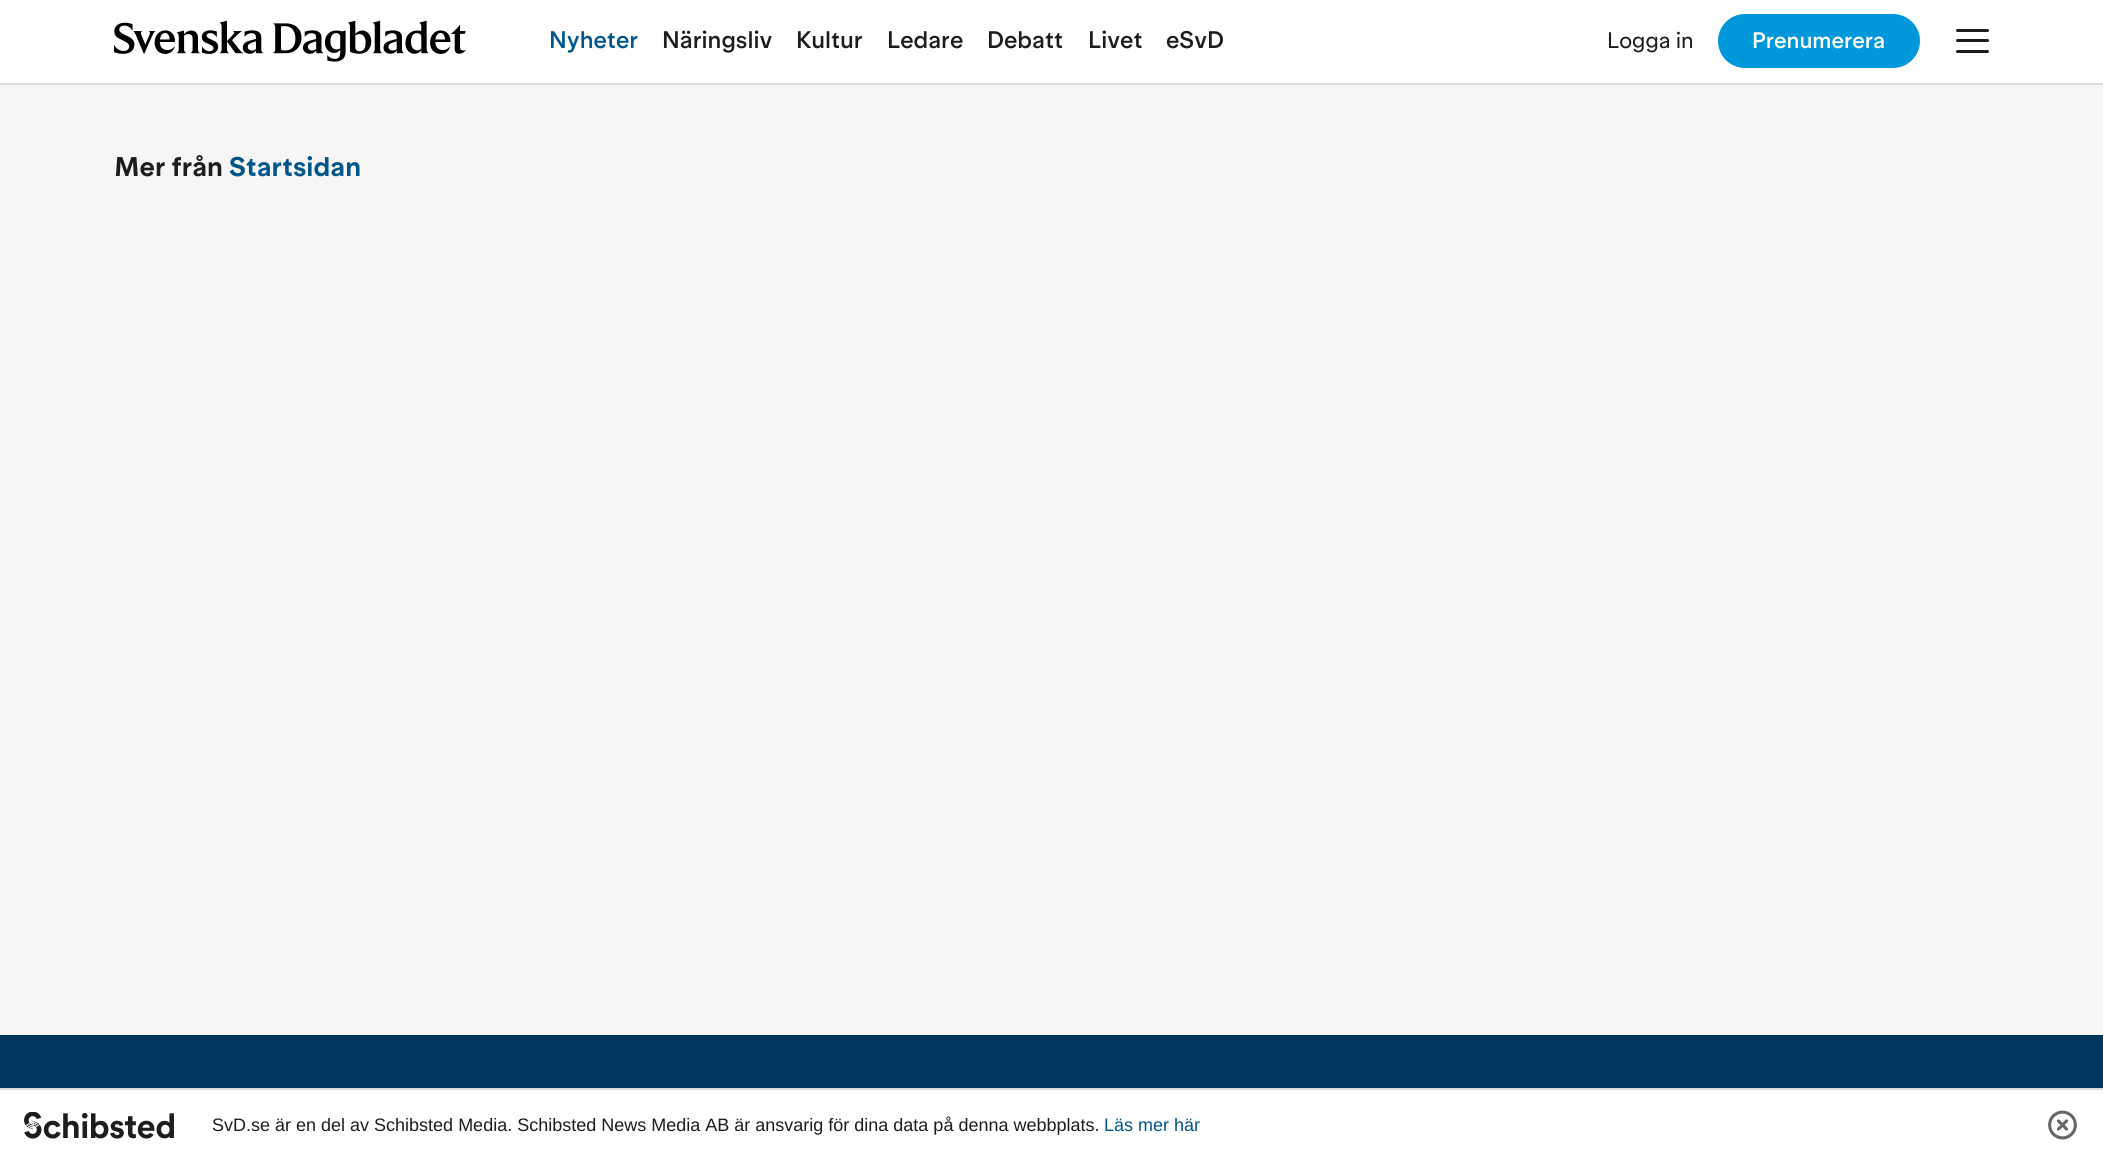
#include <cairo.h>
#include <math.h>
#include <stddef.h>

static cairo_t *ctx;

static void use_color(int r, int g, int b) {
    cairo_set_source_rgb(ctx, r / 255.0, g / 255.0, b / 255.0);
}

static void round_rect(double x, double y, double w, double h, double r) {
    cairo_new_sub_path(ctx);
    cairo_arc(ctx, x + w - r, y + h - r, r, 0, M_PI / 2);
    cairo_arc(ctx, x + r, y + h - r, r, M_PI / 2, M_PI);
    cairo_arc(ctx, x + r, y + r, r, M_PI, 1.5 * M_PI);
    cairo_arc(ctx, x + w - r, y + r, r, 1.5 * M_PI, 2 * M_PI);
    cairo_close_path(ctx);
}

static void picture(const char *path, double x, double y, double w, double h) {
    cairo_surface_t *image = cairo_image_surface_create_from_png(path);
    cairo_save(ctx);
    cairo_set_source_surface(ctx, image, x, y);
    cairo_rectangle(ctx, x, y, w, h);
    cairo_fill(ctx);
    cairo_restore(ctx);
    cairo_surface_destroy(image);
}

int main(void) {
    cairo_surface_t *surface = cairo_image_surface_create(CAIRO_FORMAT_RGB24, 2103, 1160);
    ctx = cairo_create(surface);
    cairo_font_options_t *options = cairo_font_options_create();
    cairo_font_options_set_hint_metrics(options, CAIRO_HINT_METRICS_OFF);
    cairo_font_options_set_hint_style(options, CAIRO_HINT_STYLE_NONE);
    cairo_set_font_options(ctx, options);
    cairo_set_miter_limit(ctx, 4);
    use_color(247, 246, 245);
    cairo_paint(ctx);
    use_color(255, 255, 255);
    cairo_rectangle(ctx, 0, 0, 2103, 83);
    cairo_fill(ctx);
    use_color(222, 222, 222);
    cairo_rectangle(ctx, 0, 83, 2103, 2);
    cairo_fill(ctx);
    picture("img1.png", 114, 20, 352, 42);
    cairo_select_font_face(ctx, "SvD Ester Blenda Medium", CAIRO_FONT_SLANT_NORMAL, CAIRO_FONT_WEIGHT_NORMAL);
    cairo_set_font_size(ctx, 24);
    use_color(0, 86, 138);
    cairo_move_to(ctx, 549, 48);
    cairo_show_text(ctx, "Nyheter");
    use_color(29, 29, 27);
    cairo_move_to(ctx, 662, 48);
    cairo_show_text(ctx, "Näringsliv");
    cairo_move_to(ctx, 796, 48);
    cairo_show_text(ctx, "Kultur");
    cairo_move_to(ctx, 887, 48);
    cairo_show_text(ctx, "Ledare");
    cairo_move_to(ctx, 987, 48);
    cairo_show_text(ctx, "Debatt");
    cairo_move_to(ctx, 1088, 48);
    cairo_show_text(ctx, "Livet");
    cairo_move_to(ctx, 1166, 48);
    cairo_show_text(ctx, "eSvD");
    cairo_select_font_face(ctx, "SvD Ester Blenda", CAIRO_FONT_SLANT_NORMAL, CAIRO_FONT_WEIGHT_NORMAL);
    cairo_set_font_size(ctx, 22.5);
    cairo_move_to(ctx, 1607, 48);
    cairo_show_text(ctx, "Logga in");
    use_color(0, 152, 218);
    round_rect(1718, 14, 202, 54, 27);
    cairo_fill(ctx);
    cairo_select_font_face(ctx, "SvD Ester Blenda Medium", CAIRO_FONT_SLANT_NORMAL, CAIRO_FONT_WEIGHT_NORMAL);
    use_color(255, 255, 255);
    cairo_move_to(ctx, 1752, 48);
    cairo_show_text(ctx, "Prenumerera");
    use_color(29, 29, 27);
    round_rect(1956, 39, 33, 3, 1.5);
    cairo_fill(ctx);
    round_rect(1956, 29, 33, 3, 1.5);
    cairo_fill(ctx);
    round_rect(1956, 50, 33, 3, 1.5);
    cairo_fill(ctx);
    cairo_select_font_face(ctx, "SvD Ester Blenda", CAIRO_FONT_SLANT_NORMAL, CAIRO_FONT_WEIGHT_BOLD);
    cairo_set_font_size(ctx, 27);
    cairo_move_to(ctx, 114, 176);
    cairo_show_text(ctx, "Mer från");
    use_color(0, 86, 138);
    cairo_move_to(ctx, 229, 176);
    cairo_show_text(ctx, "Startsidan");
    use_color(0, 53, 95);
    cairo_rectangle(ctx, 0, 1035, 2103, 53);
    cairo_fill(ctx);
    use_color(255, 255, 255);
    cairo_rectangle(ctx, 0, 1090, 2103, 70);
    cairo_fill(ctx);
    use_color(222, 222, 222);
    cairo_rectangle(ctx, 0, 1088, 2103, 2);
    cairo_fill(ctx);
    picture("img2.png", 24, 1112, 150, 27);
    cairo_select_font_face(ctx, "Liberation Sans", CAIRO_FONT_SLANT_NORMAL, CAIRO_FONT_WEIGHT_NORMAL);
    cairo_set_font_size(ctx, 18);
    use_color(29, 29, 27);
    cairo_move_to(ctx, 212, 1131);
    cairo_show_text(ctx, "SvD.se är en del av Schibsted Media. Schibsted News Media AB är ansvarig för dina data på denna webbplats.");
    use_color(0, 86, 138);
    cairo_move_to(ctx, 1104, 1131);
    cairo_show_text(ctx, "Läs mer här");
    picture("img3.png", 2048, 1110, 29, 30);
    cairo_surface_write_to_png(surface, "result.png");
    cairo_font_options_destroy(options);
    cairo_destroy(ctx);
    cairo_surface_destroy(surface);
    return 0;
}
